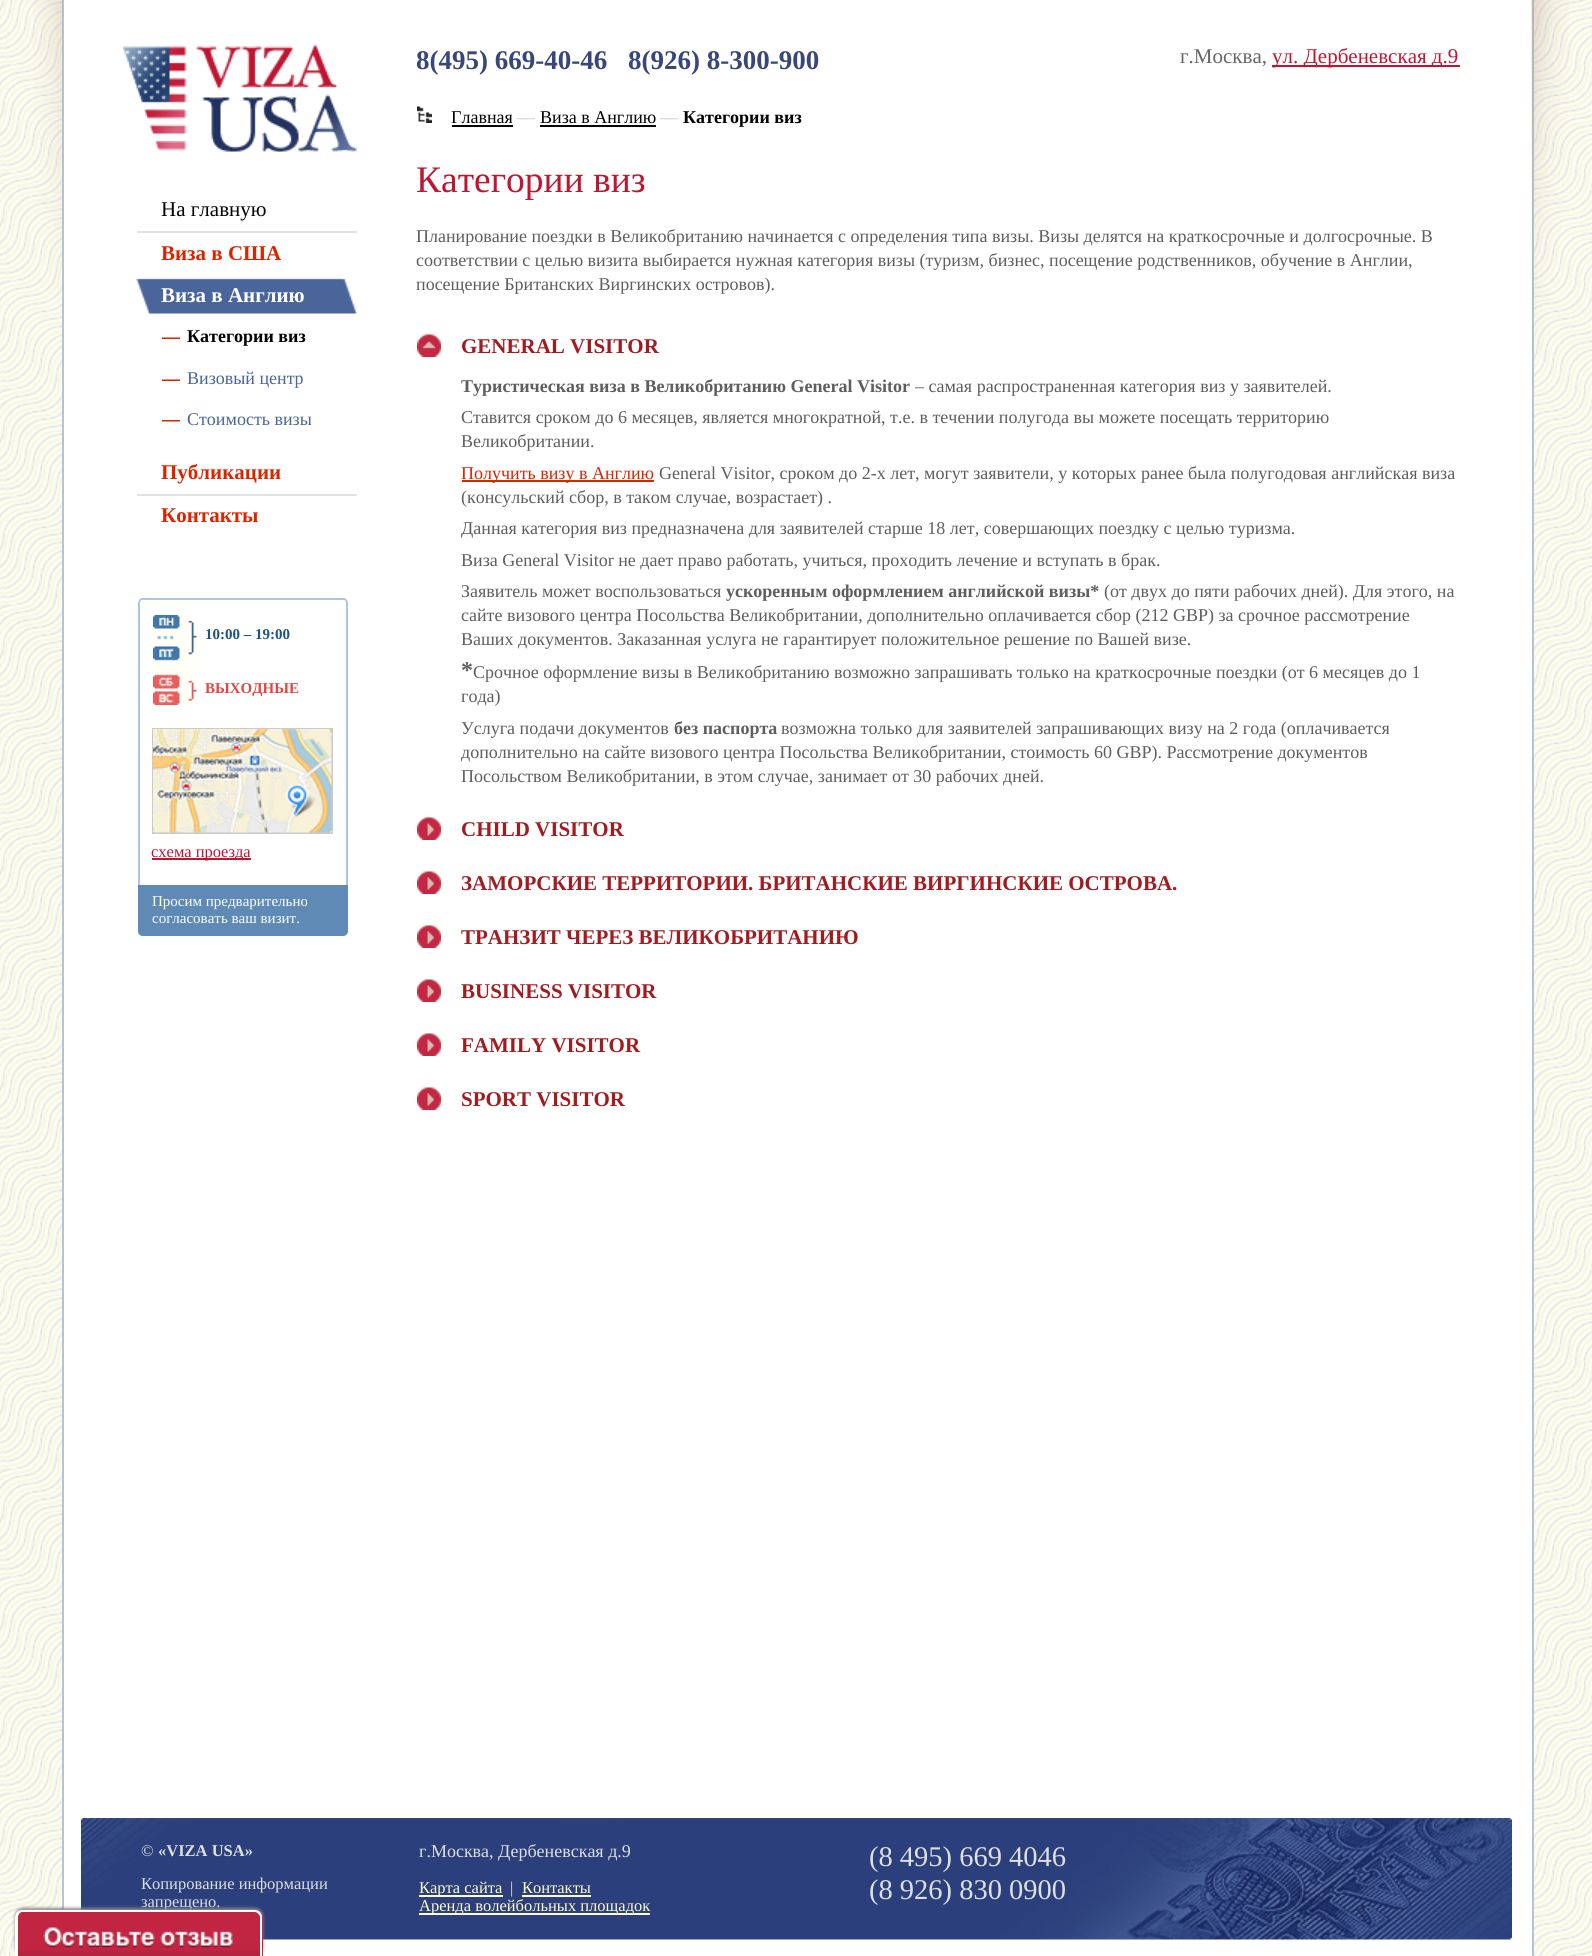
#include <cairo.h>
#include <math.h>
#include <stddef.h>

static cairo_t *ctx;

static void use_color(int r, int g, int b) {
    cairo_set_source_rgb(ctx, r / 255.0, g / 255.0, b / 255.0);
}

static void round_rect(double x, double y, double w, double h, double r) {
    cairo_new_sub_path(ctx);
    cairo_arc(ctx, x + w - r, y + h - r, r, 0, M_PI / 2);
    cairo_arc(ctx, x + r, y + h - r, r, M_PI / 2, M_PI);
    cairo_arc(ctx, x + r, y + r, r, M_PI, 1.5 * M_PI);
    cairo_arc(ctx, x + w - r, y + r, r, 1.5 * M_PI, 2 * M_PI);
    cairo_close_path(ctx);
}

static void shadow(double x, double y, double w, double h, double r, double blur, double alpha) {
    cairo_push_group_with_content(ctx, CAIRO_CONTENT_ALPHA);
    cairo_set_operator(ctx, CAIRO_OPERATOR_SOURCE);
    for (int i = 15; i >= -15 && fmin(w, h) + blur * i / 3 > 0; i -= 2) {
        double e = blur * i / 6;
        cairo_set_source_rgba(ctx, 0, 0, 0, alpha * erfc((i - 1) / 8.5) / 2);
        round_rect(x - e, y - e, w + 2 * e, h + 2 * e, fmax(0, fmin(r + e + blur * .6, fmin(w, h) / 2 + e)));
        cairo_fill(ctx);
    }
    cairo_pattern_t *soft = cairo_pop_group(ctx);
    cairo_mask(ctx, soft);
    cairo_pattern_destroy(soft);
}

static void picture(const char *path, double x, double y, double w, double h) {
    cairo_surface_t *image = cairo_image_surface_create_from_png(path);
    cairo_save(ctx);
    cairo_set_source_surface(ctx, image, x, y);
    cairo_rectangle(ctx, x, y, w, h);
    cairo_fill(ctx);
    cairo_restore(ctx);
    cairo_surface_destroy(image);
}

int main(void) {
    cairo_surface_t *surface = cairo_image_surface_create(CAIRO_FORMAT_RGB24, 1592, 1956);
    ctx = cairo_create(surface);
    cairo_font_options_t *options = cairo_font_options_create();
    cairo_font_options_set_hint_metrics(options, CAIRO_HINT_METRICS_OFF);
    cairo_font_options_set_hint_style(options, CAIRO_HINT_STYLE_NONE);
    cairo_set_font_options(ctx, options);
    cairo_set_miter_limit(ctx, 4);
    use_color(255, 255, 255);
    cairo_paint(ctx);
    picture("img1.png", 0, 0, 1592, 1956);
    use_color(255, 255, 255);
    cairo_rectangle(ctx, 64, 0, 1468, 1956);
    cairo_fill(ctx);
    use_color(178, 196, 213);
    cairo_rectangle(ctx, 1532, 0, 2, 1956);
    cairo_fill(ctx);
    cairo_rectangle(ctx, 62, 0, 2, 1910);
    cairo_fill(ctx);
    picture("img2.png", 33, 0, 30, 290);
    picture("img3.png", 123, 45, 234, 107);
    use_color(226, 226, 226);
    cairo_rectangle(ctx, 137, 231, 220, 2);
    cairo_fill(ctx);
    cairo_select_font_face(ctx, "Liberation Serif", CAIRO_FONT_SLANT_NORMAL, CAIRO_FONT_WEIGHT_NORMAL);
    cairo_set_font_size(ctx, 21);
    use_color(0, 0, 0);
    cairo_move_to(ctx, 161, 216);
    cairo_show_text(ctx, "На главную");
    cairo_select_font_face(ctx, "Liberation Serif", CAIRO_FONT_SLANT_NORMAL, CAIRO_FONT_WEIGHT_BOLD);
    use_color(219, 37, 0);
    cairo_move_to(ctx, 161, 260);
    cairo_show_text(ctx, "Виза в США");
    picture("img4.png", 136, 275, 221, 39);
    use_color(255, 255, 255);
    cairo_move_to(ctx, 161, 302);
    cairo_show_text(ctx, "Виза в Англию");
    picture("img5.png", 162, 337, 18, 2);
    cairo_set_font_size(ctx, 18);
    use_color(0, 0, 0);
    cairo_move_to(ctx, 187, 342);
    cairo_show_text(ctx, "Категории виз");
    picture("img5.png", 162, 379, 18, 2);
    cairo_select_font_face(ctx, "Liberation Serif", CAIRO_FONT_SLANT_NORMAL, CAIRO_FONT_WEIGHT_NORMAL);
    use_color(74, 101, 153);
    cairo_move_to(ctx, 187, 384);
    cairo_show_text(ctx, "Визовый центр");
    picture("img6.png", 162, 420, 18, 2);
    cairo_move_to(ctx, 187, 425);
    cairo_show_text(ctx, "Стоимость визы");
    use_color(226, 226, 226);
    cairo_rectangle(ctx, 137, 494, 220, 2);
    cairo_fill(ctx);
    cairo_select_font_face(ctx, "Liberation Serif", CAIRO_FONT_SLANT_NORMAL, CAIRO_FONT_WEIGHT_BOLD);
    cairo_set_font_size(ctx, 21);
    use_color(219, 37, 0);
    cairo_move_to(ctx, 161, 479);
    cairo_show_text(ctx, "Публикации");
    cairo_move_to(ctx, 161, 522);
    cairo_show_text(ctx, "Контакты");
    use_color(172, 196, 220);
    cairo_set_fill_rule(ctx, CAIRO_FILL_RULE_EVEN_ODD);
    cairo_new_path(ctx);
    cairo_move_to(ctx, 142, 598);
    cairo_line_to(ctx, 344, 598);
    cairo_curve_to(ctx, 346, 598, 348, 601, 348, 603);
    cairo_line_to(ctx, 348, 885);
    cairo_line_to(ctx, 138, 885);
    cairo_line_to(ctx, 138, 603);
    cairo_curve_to(ctx, 138, 601, 140, 598, 142, 598);
    cairo_close_path(ctx);
    cairo_move_to(ctx, 142, 600);
    cairo_line_to(ctx, 344, 600);
    cairo_curve_to(ctx, 345, 600, 346, 601, 346, 603);
    cairo_line_to(ctx, 346, 885);
    cairo_line_to(ctx, 140, 885);
    cairo_line_to(ctx, 140, 603);
    cairo_curve_to(ctx, 140, 601, 141, 600, 142, 600);
    cairo_close_path(ctx);
    cairo_fill(ctx);
    picture("img7.png", 153, 615, 44, 90);
    cairo_set_font_size(ctx, 15);
    use_color(26, 84, 131);
    cairo_move_to(ctx, 205, 639);
    cairo_show_text(ctx, "10:00 – 19:00");
    use_color(226, 68, 68);
    cairo_move_to(ctx, 205, 693);
    cairo_show_text(ctx, "ВЫХОДНЫЕ");
    cairo_rectangle(ctx, 153, 729, 179, 104);
    use_color(202, 202, 202);
    cairo_stroke(ctx);
    picture("img8.png", 153, 729, 179, 104);
    use_color(191, 21, 49);
    cairo_rectangle(ctx, 152, 858, 99, 2);
    cairo_fill(ctx);
    cairo_select_font_face(ctx, "Liberation Serif", CAIRO_FONT_SLANT_NORMAL, CAIRO_FONT_WEIGHT_NORMAL);
    cairo_set_font_size(ctx, 16.5);
    cairo_move_to(ctx, 151, 857);
    cairo_show_text(ctx, "схема проезда");
    use_color(94, 138, 181);
    cairo_new_path(ctx);
    cairo_move_to(ctx, 138, 885);
    cairo_line_to(ctx, 348, 885);
    cairo_line_to(ctx, 348, 931);
    cairo_curve_to(ctx, 348, 934, 346, 936, 343, 936);
    cairo_line_to(ctx, 143, 936);
    cairo_curve_to(ctx, 140, 936, 138, 934, 138, 931);
    cairo_close_path(ctx);
    cairo_fill(ctx);
    cairo_set_font_size(ctx, 15);
    use_color(255, 255, 255);
    cairo_move_to(ctx, 152, 906);
    cairo_show_text(ctx, "Просим предварительно");
    cairo_move_to(ctx, 152, 923);
    cairo_show_text(ctx, "согласовать ваш визит.");
    cairo_select_font_face(ctx, "Liberation Serif", CAIRO_FONT_SLANT_NORMAL, CAIRO_FONT_WEIGHT_BOLD);
    cairo_set_font_size(ctx, 27);
    use_color(55, 71, 121);
    cairo_move_to(ctx, 416, 69);
    cairo_show_text(ctx, "8(495) 669-40-46");
    cairo_move_to(ctx, 628, 69);
    cairo_show_text(ctx, "8(926) 8-300-900");
    cairo_select_font_face(ctx, "Liberation Serif", CAIRO_FONT_SLANT_NORMAL, CAIRO_FONT_WEIGHT_NORMAL);
    cairo_set_font_size(ctx, 21);
    use_color(102, 102, 102);
    cairo_move_to(ctx, 1180, 63);
    cairo_show_text(ctx, "г.Москва,");
    use_color(191, 21, 49);
    cairo_rectangle(ctx, 1272, 65, 188, 2);
    cairo_fill(ctx);
    cairo_move_to(ctx, 1272, 63);
    cairo_show_text(ctx, "ул. Дербеневская д.9");
    picture("img9.png", 417, 106, 15, 17);
    cairo_set_font_size(ctx, 18);
    use_color(0, 0, 0);
    cairo_move_to(ctx, 451, 123);
    cairo_show_text(ctx, "Главная");
    cairo_rectangle(ctx, 452, 125, 61, 2);
    cairo_fill(ctx);
    use_color(202, 202, 202);
    cairo_move_to(ctx, 517, 123);
    cairo_show_text(ctx, "—");
    use_color(0, 0, 0);
    cairo_move_to(ctx, 540, 123);
    cairo_show_text(ctx, "Виза в Англию");
    cairo_rectangle(ctx, 540, 125, 116, 2);
    cairo_fill(ctx);
    use_color(202, 202, 202);
    cairo_move_to(ctx, 660, 123);
    cairo_show_text(ctx, "—");
    cairo_select_font_face(ctx, "Liberation Serif", CAIRO_FONT_SLANT_NORMAL, CAIRO_FONT_WEIGHT_BOLD);
    use_color(0, 0, 0);
    cairo_move_to(ctx, 683, 123);
    cairo_show_text(ctx, "Категории виз");
    cairo_select_font_face(ctx, "Liberation Serif", CAIRO_FONT_SLANT_NORMAL, CAIRO_FONT_WEIGHT_NORMAL);
    cairo_set_font_size(ctx, 37.5);
    use_color(191, 21, 49);
    cairo_move_to(ctx, 416, 192);
    cairo_show_text(ctx, "Категории виз");
    cairo_set_font_size(ctx, 18);
    use_color(94, 94, 94);
    cairo_move_to(ctx, 416, 242);
    cairo_show_text(ctx, "Планирование поездки в Великобританию начинается с определения типа визы. Визы делятся на краткосрочные и долгосрочные. В");
    cairo_move_to(ctx, 416, 266);
    cairo_show_text(ctx, "соответствии с целью визита выбирается нужная категория визы (туризм, бизнес, посещение родственников, обучение в Англии,");
    cairo_move_to(ctx, 416, 290);
    cairo_show_text(ctx, "посещение Британских Виргинских островов).");
    picture("img10.png", 417, 334, 24, 23);
    cairo_select_font_face(ctx, "Liberation Serif", CAIRO_FONT_SLANT_NORMAL, CAIRO_FONT_WEIGHT_BOLD);
    cairo_set_font_size(ctx, 21);
    use_color(161, 27, 31);
    cairo_move_to(ctx, 461, 353);
    cairo_show_text(ctx, "GENERAL VISITOR");
    cairo_set_font_size(ctx, 18);
    use_color(94, 94, 94);
    cairo_move_to(ctx, 461, 392);
    cairo_show_text(ctx, "Туристическая виза в Великобританию General Visitor");
    cairo_select_font_face(ctx, "Liberation Serif", CAIRO_FONT_SLANT_NORMAL, CAIRO_FONT_WEIGHT_NORMAL);
    cairo_move_to(ctx, 915, 392);
    cairo_show_text(ctx, "– самая распространенная категория виз у заявителей.");
    cairo_move_to(ctx, 461, 423);
    cairo_show_text(ctx, "Ставится сроком до 6 месяцев, является многократной, т.е. в течении полугода вы можете посещать территорию");
    cairo_move_to(ctx, 461, 447);
    cairo_show_text(ctx, "Великобритании.");
    use_color(219, 37, 0);
    cairo_rectangle(ctx, 462, 480, 192, 2);
    cairo_fill(ctx);
    cairo_move_to(ctx, 461, 479);
    cairo_show_text(ctx, "Получить визу в Англию");
    use_color(94, 94, 94);
    cairo_move_to(ctx, 659, 479);
    cairo_show_text(ctx, "General Visitor, сроком до 2-х лет, могут заявители, у которых ранее была полугодовая английская виза");
    cairo_move_to(ctx, 461, 503);
    cairo_show_text(ctx, "(консульский сбор, в таком случае, возрастает) .");
    cairo_move_to(ctx, 461, 534);
    cairo_show_text(ctx, "Данная категория виз предназначена для заявителей старше 18 лет, совершающих поездку с целью туризма.");
    cairo_move_to(ctx, 461, 566);
    cairo_show_text(ctx, "Виза General Visitor не дает право работать, учиться, проходить лечение и вступать в брак.");
    cairo_move_to(ctx, 461, 597);
    cairo_show_text(ctx, "Заявитель может воспользоваться");
    cairo_select_font_face(ctx, "Liberation Serif", CAIRO_FONT_SLANT_NORMAL, CAIRO_FONT_WEIGHT_BOLD);
    cairo_move_to(ctx, 726, 597);
    cairo_show_text(ctx, "ускоренным оформлением английской визы*");
    cairo_select_font_face(ctx, "Liberation Serif", CAIRO_FONT_SLANT_NORMAL, CAIRO_FONT_WEIGHT_NORMAL);
    cairo_move_to(ctx, 1104, 597);
    cairo_show_text(ctx, "(от двух до пяти рабочих дней). Для этого, на");
    cairo_move_to(ctx, 461, 621);
    cairo_show_text(ctx, "сайте визового центра Посольства Великобритании, дополнительно оплачивается сбор (212 GBP) за срочное рассмотрение");
    cairo_move_to(ctx, 461, 645);
    cairo_show_text(ctx, "Ваших документов. Заказанная услуга не гарантирует положительное решение по Вашей визе.");
    cairo_select_font_face(ctx, "Liberation Serif", CAIRO_FONT_SLANT_NORMAL, CAIRO_FONT_WEIGHT_BOLD);
    cairo_set_font_size(ctx, 24);
    cairo_move_to(ctx, 461, 678);
    cairo_show_text(ctx, "*");
    cairo_select_font_face(ctx, "Liberation Serif", CAIRO_FONT_SLANT_NORMAL, CAIRO_FONT_WEIGHT_NORMAL);
    cairo_set_font_size(ctx, 18);
    cairo_move_to(ctx, 473, 678);
    cairo_show_text(ctx, "Срочное оформление визы в Великобританию возможно запрашивать только на краткосрочные поездки (от 6 месяцев до 1");
    cairo_move_to(ctx, 461, 702);
    cairo_show_text(ctx, "года)");
    cairo_move_to(ctx, 461, 734);
    cairo_show_text(ctx, "Услуга подачи документов");
    cairo_select_font_face(ctx, "Liberation Serif", CAIRO_FONT_SLANT_NORMAL, CAIRO_FONT_WEIGHT_BOLD);
    cairo_move_to(ctx, 674, 734);
    cairo_show_text(ctx, "без паспорта");
    cairo_select_font_face(ctx, "Liberation Serif", CAIRO_FONT_SLANT_NORMAL, CAIRO_FONT_WEIGHT_NORMAL);
    cairo_move_to(ctx, 781, 734);
    cairo_show_text(ctx, "возможна только для заявителей запрашивающих визу на 2 года (оплачивается");
    cairo_move_to(ctx, 461, 758);
    cairo_show_text(ctx, "дополнительно на сайте визового центра Посольства Великобритании, стоимость 60 GBP). Рассмотрение документов");
    cairo_move_to(ctx, 461, 782);
    cairo_show_text(ctx, "Посольством Великобритании, в этом случае, занимает от 30 рабочих дней.");
    picture("img11.png", 417, 817, 24, 23);
    cairo_select_font_face(ctx, "Liberation Serif", CAIRO_FONT_SLANT_NORMAL, CAIRO_FONT_WEIGHT_BOLD);
    cairo_set_font_size(ctx, 21);
    use_color(161, 27, 31);
    cairo_move_to(ctx, 461, 836);
    cairo_show_text(ctx, "CHILD VISITOR");
    picture("img11.png", 417, 871, 24, 23);
    cairo_move_to(ctx, 461, 890);
    cairo_show_text(ctx, "ЗАМОРСКИЕ ТЕРРИТОРИИ. БРИТАНСКИЕ ВИРГИНСКИЕ ОСТРОВА.");
    picture("img11.png", 417, 925, 24, 23);
    cairo_move_to(ctx, 461, 944);
    cairo_show_text(ctx, "ТРАНЗИТ ЧЕРЕЗ ВЕЛИКОБРИТАНИЮ");
    picture("img11.png", 417, 979, 24, 23);
    cairo_move_to(ctx, 461, 998);
    cairo_show_text(ctx, "BUSINESS VISITOR");
    picture("img11.png", 417, 1033, 24, 23);
    cairo_move_to(ctx, 461, 1052);
    cairo_show_text(ctx, "FAMILY VISITOR");
    picture("img11.png", 417, 1087, 24, 23);
    cairo_move_to(ctx, 461, 1106);
    cairo_show_text(ctx, "SPORT VISITOR");
    picture("img12.png", 1531, 0, 38, 355);
    picture("img13.png", 81, 1818, 1431, 122);
    cairo_select_font_face(ctx, "Liberation Serif", CAIRO_FONT_SLANT_NORMAL, CAIRO_FONT_WEIGHT_NORMAL);
    cairo_set_font_size(ctx, 16.5);
    use_color(223, 223, 223);
    cairo_move_to(ctx, 141, 1856);
    cairo_show_text(ctx, "©");
    cairo_select_font_face(ctx, "Liberation Serif", CAIRO_FONT_SLANT_NORMAL, CAIRO_FONT_WEIGHT_BOLD);
    cairo_move_to(ctx, 158, 1856);
    cairo_show_text(ctx, "«VIZA USA»");
    cairo_select_font_face(ctx, "Liberation Serif", CAIRO_FONT_SLANT_NORMAL, CAIRO_FONT_WEIGHT_NORMAL);
    cairo_move_to(ctx, 141, 1889);
    cairo_show_text(ctx, "Копирование информации");
    cairo_move_to(ctx, 141, 1907);
    cairo_show_text(ctx, "запрещено.");
    cairo_set_font_size(ctx, 18);
    cairo_move_to(ctx, 419, 1857);
    cairo_show_text(ctx, "г.Москва, Дербеневская д.9");
    use_color(255, 251, 202);
    cairo_rectangle(ctx, 419, 1895, 84, 2);
    cairo_fill(ctx);
    cairo_set_font_size(ctx, 16.5);
    cairo_move_to(ctx, 419, 1893);
    cairo_show_text(ctx, "Карта сайта");
    use_color(223, 223, 223);
    cairo_move_to(ctx, 510, 1893);
    cairo_show_text(ctx, "|");
    use_color(255, 251, 202);
    cairo_move_to(ctx, 522, 1893);
    cairo_show_text(ctx, "Контакты");
    cairo_rectangle(ctx, 522, 1895, 69, 2);
    cairo_fill(ctx);
    cairo_rectangle(ctx, 419, 1913, 231, 2);
    cairo_fill(ctx);
    cairo_move_to(ctx, 419, 1911);
    cairo_show_text(ctx, "Аренда волейбольных площадок");
    cairo_set_font_size(ctx, 28.5);
    use_color(223, 223, 223);
    cairo_move_to(ctx, 869, 1866);
    cairo_show_text(ctx, "(8 495) 669 4046");
    cairo_move_to(ctx, 869, 1899);
    cairo_show_text(ctx, "(8 926) 830 0900");
    use_color(136, 136, 136);
    shadow(15, 1908, 248, 47, 8, 1.5, 1);
    use_color(194, 37, 66);
    cairo_new_path(ctx);
    cairo_move_to(ctx, 23, 1910);
    cairo_line_to(ctx, 255, 1910);
    cairo_curve_to(ctx, 259.5, 1910, 263, 1913.5, 263, 1918);
    cairo_line_to(ctx, 263, 1956);
    cairo_line_to(ctx, 15, 1956);
    cairo_line_to(ctx, 15, 1918);
    cairo_curve_to(ctx, 15, 1913.5, 18.5, 1910, 23, 1910);
    cairo_close_path(ctx);
    cairo_fill(ctx);
    picture("img14.png", 18, 1950, 242, 6);
    use_color(255, 255, 255);
    cairo_new_path(ctx);
    cairo_move_to(ctx, 22, 1910);
    cairo_line_to(ctx, 255, 1910);
    cairo_curve_to(ctx, 259, 1910, 262, 1913, 262, 1917);
    cairo_line_to(ctx, 262, 1956);
    cairo_line_to(ctx, 15, 1956);
    cairo_line_to(ctx, 15, 1917);
    cairo_curve_to(ctx, 15, 1913, 18, 1910, 22, 1910);
    cairo_close_path(ctx);
    cairo_move_to(ctx, 22, 1912);
    cairo_line_to(ctx, 255, 1912);
    cairo_curve_to(ctx, 257, 1912, 260, 1915, 260, 1917);
    cairo_line_to(ctx, 260, 1956);
    cairo_line_to(ctx, 18, 1956);
    cairo_line_to(ctx, 18, 1917);
    cairo_curve_to(ctx, 18, 1915, 20, 1912, 22, 1912);
    cairo_close_path(ctx);
    cairo_fill(ctx);
    picture("img15.png", 43, 1927, 190, 21);
    cairo_surface_write_to_png(surface, "result.png");
    cairo_font_options_destroy(options);
    cairo_destroy(ctx);
    cairo_surface_destroy(surface);
    return 0;
}
